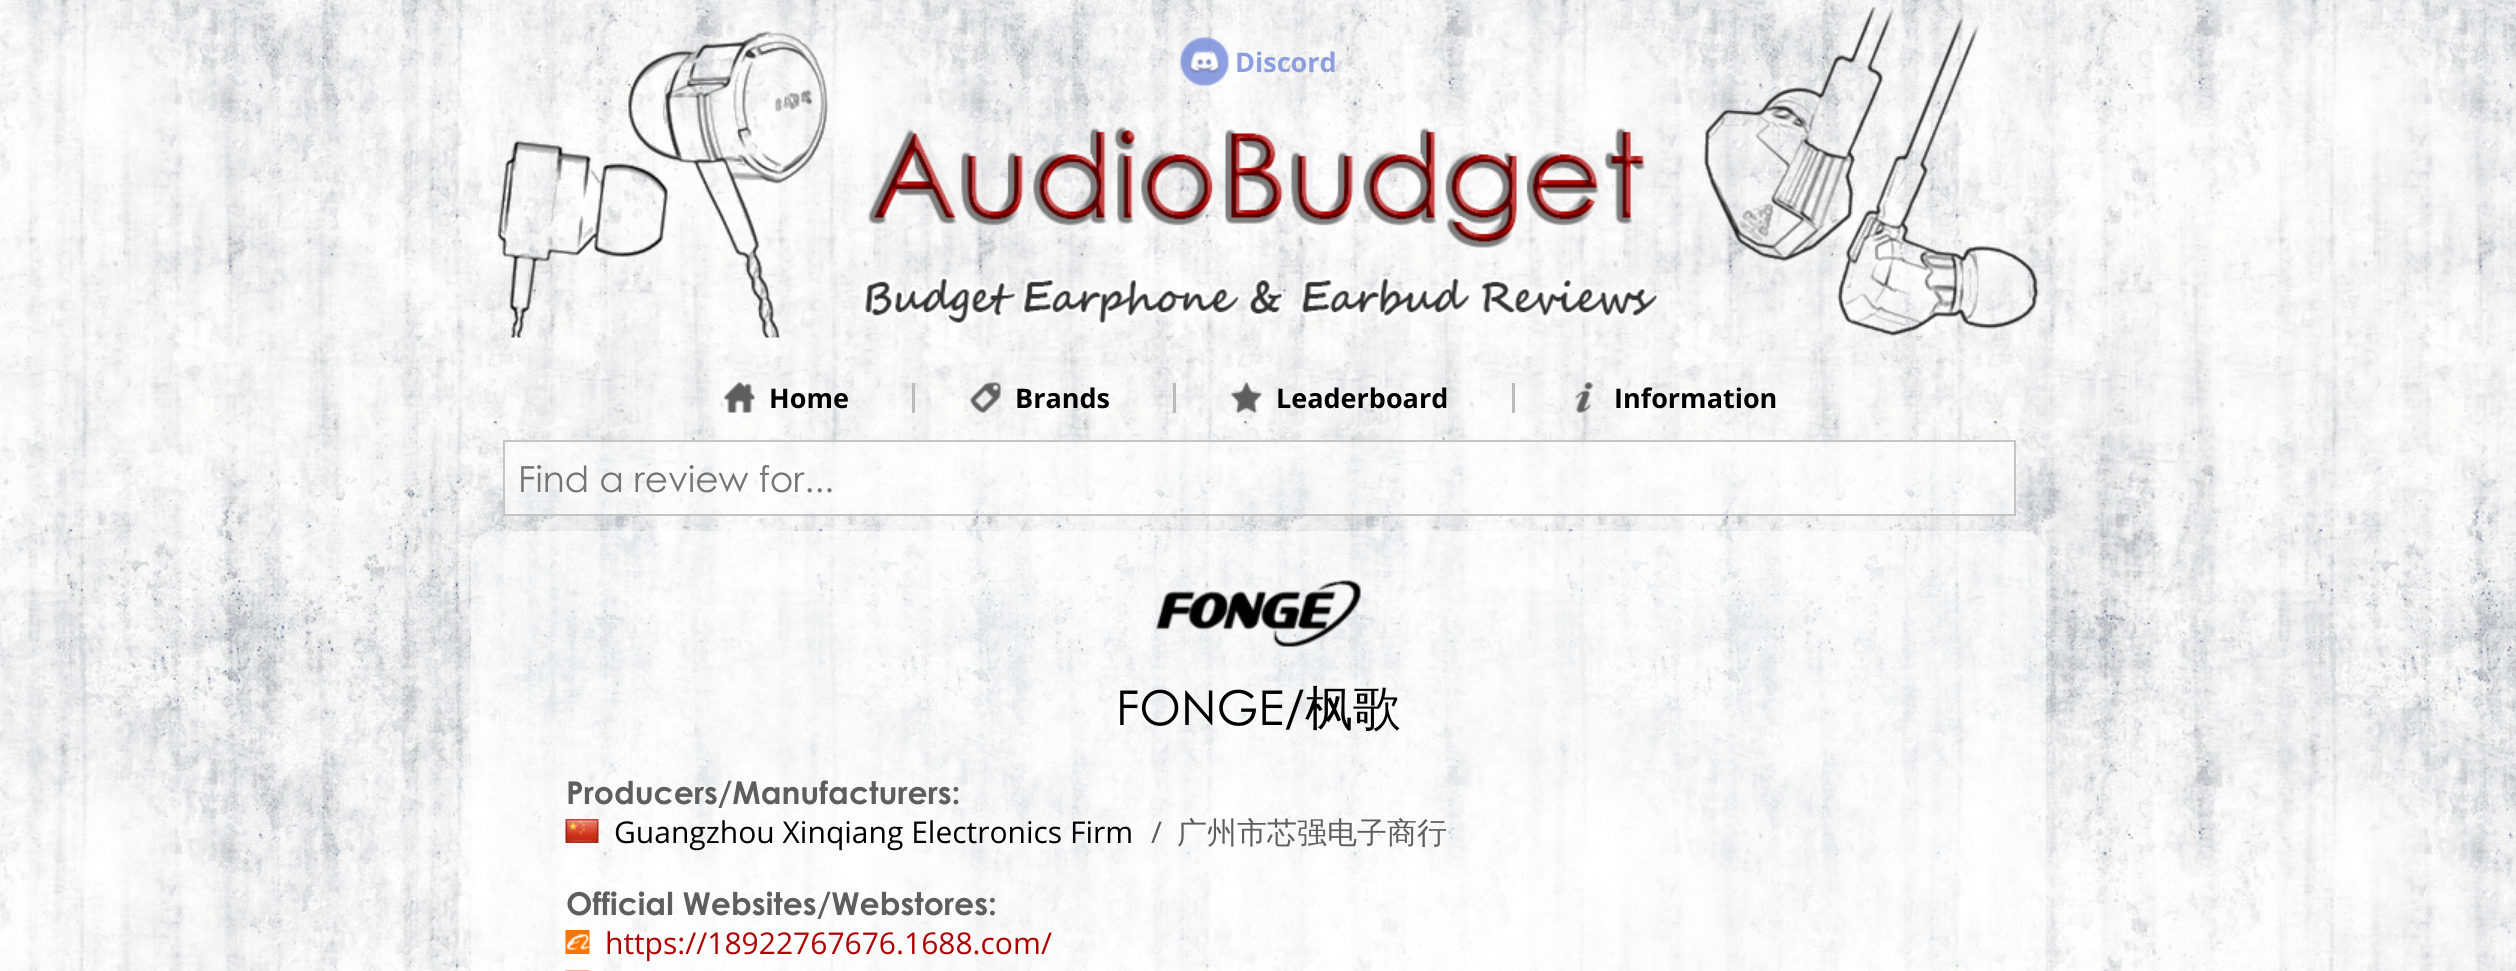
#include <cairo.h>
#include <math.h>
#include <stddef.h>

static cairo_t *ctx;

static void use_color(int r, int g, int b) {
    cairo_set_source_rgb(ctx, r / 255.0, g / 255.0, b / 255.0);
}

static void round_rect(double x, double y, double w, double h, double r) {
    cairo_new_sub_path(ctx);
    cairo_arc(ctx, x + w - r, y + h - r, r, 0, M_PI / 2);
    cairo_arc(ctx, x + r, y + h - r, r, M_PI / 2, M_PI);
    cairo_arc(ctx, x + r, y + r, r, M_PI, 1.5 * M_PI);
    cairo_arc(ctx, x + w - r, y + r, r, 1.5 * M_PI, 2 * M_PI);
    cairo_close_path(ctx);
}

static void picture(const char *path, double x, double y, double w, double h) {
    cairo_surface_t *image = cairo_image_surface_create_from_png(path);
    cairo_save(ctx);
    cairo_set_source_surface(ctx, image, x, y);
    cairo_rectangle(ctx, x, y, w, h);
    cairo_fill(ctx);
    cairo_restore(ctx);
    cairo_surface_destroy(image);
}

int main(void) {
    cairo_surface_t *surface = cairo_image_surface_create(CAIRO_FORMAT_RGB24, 2516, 971);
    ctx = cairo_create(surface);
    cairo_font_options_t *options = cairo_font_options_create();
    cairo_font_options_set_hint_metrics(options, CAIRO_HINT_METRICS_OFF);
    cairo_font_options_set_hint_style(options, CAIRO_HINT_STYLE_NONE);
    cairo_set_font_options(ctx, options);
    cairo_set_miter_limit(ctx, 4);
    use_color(255, 255, 255);
    cairo_paint(ctx);
    picture("img1.png", 0, 0, 2516, 971);
    picture("img2.png", 497, 7, 1542, 331);
    picture("img3.png", 1180, 37, 49, 49);
    cairo_select_font_face(ctx, "Open Sans", CAIRO_FONT_SLANT_NORMAL, CAIRO_FONT_WEIGHT_BOLD);
    cairo_set_font_size(ctx, 27);
    use_color(140, 158, 223);
    cairo_move_to(ctx, 1235, 72);
    cairo_show_text(ctx, "Discord");
    picture("img4.png", 724, 382, 31, 31);
    use_color(0, 0, 0);
    cairo_move_to(ctx, 769, 408);
    cairo_show_text(ctx, "Home");
    use_color(187, 187, 187);
    cairo_rectangle(ctx, 912, 383, 3, 30);
    cairo_fill(ctx);
    picture("img5.png", 970, 382, 31, 31);
    use_color(0, 0, 0);
    cairo_move_to(ctx, 1015, 408);
    cairo_show_text(ctx, "Brands");
    use_color(187, 187, 187);
    cairo_rectangle(ctx, 1173, 383, 3, 30);
    cairo_fill(ctx);
    picture("img6.png", 1231, 382, 31, 31);
    use_color(0, 0, 0);
    cairo_move_to(ctx, 1276, 408);
    cairo_show_text(ctx, "Leaderboard");
    use_color(187, 187, 187);
    cairo_rectangle(ctx, 1512, 383, 3, 30);
    cairo_fill(ctx);
    picture("img7.png", 1574, 382, 20, 31);
    use_color(0, 0, 0);
    cairo_move_to(ctx, 1614, 408);
    cairo_show_text(ctx, "Information");
    cairo_set_source_rgba(ctx, 1, 1, 1, 0.6);
    cairo_rectangle(ctx, 504, 441, 1511, 74);
    cairo_fill_preserve(ctx);
    use_color(197, 197, 197);
    cairo_stroke(ctx);
    cairo_select_font_face(ctx, "Century Gothic", CAIRO_FONT_SLANT_NORMAL, CAIRO_FONT_WEIGHT_NORMAL);
    cairo_set_font_size(ctx, 36);
    use_color(117, 117, 117);
    cairo_move_to(ctx, 518, 492);
    cairo_show_text(ctx, "Find a review for...");
    cairo_set_source_rgba(ctx, 1, 1, 1, 0.6);
    round_rect(471, 531, 1575, 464, 24);
    cairo_fill(ctx);
    picture("img8.png", 1156, 580, 205, 67);
    cairo_set_font_size(ctx, 48);
    use_color(0, 0, 0);
    cairo_move_to(ctx, 1116, 725);
    cairo_show_text(ctx, "FONGE/");
    cairo_select_font_face(ctx, "WenQuanYi Zen Hei Medium", CAIRO_FONT_SLANT_NORMAL, CAIRO_FONT_WEIGHT_NORMAL);
    cairo_move_to(ctx, 1305, 725);
    cairo_show_text(ctx, "枫歌");
    cairo_select_font_face(ctx, "Century Gothic", CAIRO_FONT_SLANT_NORMAL, CAIRO_FONT_WEIGHT_BOLD);
    cairo_set_font_size(ctx, 31.5);
    use_color(94, 94, 94);
    cairo_move_to(ctx, 566, 804);
    cairo_show_text(ctx, "Producers/Manufacturers:");
    picture("img9.png", 565, 819, 34, 24);
    cairo_select_font_face(ctx, "Open Sans", CAIRO_FONT_SLANT_NORMAL, CAIRO_FONT_WEIGHT_NORMAL);
    cairo_set_font_size(ctx, 30);
    use_color(0, 0, 0);
    cairo_move_to(ctx, 614, 843);
    cairo_show_text(ctx, "Guangzhou Xinqiang Electronics Firm");
    use_color(94, 94, 94);
    cairo_move_to(ctx, 1151, 843);
    cairo_show_text(ctx, "/");
    cairo_select_font_face(ctx, "WenQuanYi Zen Hei Medium", CAIRO_FONT_SLANT_NORMAL, CAIRO_FONT_WEIGHT_NORMAL);
    cairo_move_to(ctx, 1177, 843);
    cairo_show_text(ctx, "广州市芯强电子商行");
    cairo_select_font_face(ctx, "Century Gothic", CAIRO_FONT_SLANT_NORMAL, CAIRO_FONT_WEIGHT_BOLD);
    cairo_set_font_size(ctx, 31.5);
    cairo_move_to(ctx, 566, 915);
    cairo_show_text(ctx, "Official Websites/Webstores:");
    picture("img10.png", 565, 930, 25, 24);
    cairo_select_font_face(ctx, "Open Sans", CAIRO_FONT_SLANT_NORMAL, CAIRO_FONT_WEIGHT_NORMAL);
    cairo_set_font_size(ctx, 30);
    use_color(174, 0, 0);
    cairo_move_to(ctx, 605, 954);
    cairo_show_text(ctx, "https://18922767676.1688.com/");
    picture("img11.png", 565, 970, 25, 1);
    cairo_surface_write_to_png(surface, "result.png");
    cairo_font_options_destroy(options);
    cairo_destroy(ctx);
    cairo_surface_destroy(surface);
    return 0;
}
